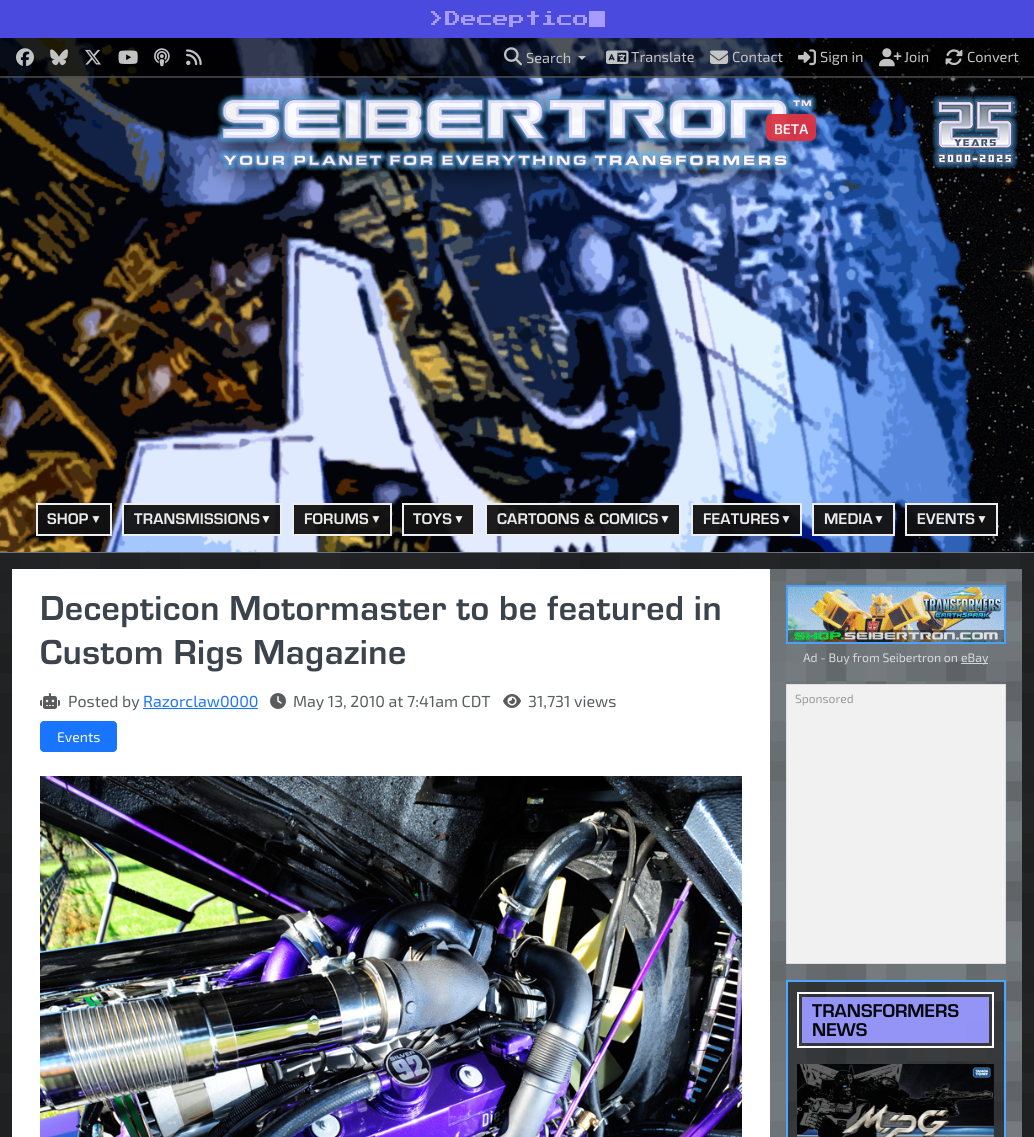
#include <cairo.h>
#include <math.h>
#include <stddef.h>

static cairo_t *ctx;

static void use_color(int r, int g, int b) {
    cairo_set_source_rgb(ctx, r / 255.0, g / 255.0, b / 255.0);
}

static void spaced_text(double x, double y, const char *s, double letter, double word) {
    cairo_move_to(ctx, x, y);
    while (*s) {
        char ch[5] = {0};
        int n = 0;
        do ch[n++] = *s++; while ((*s & 0xC0) == 0x80);
        cairo_show_text(ctx, ch);
        cairo_rel_move_to(ctx, letter + word * (*ch == ' '), 0);
    }
}

static void round_rect(double x, double y, double w, double h, double r) {
    cairo_new_sub_path(ctx);
    cairo_arc(ctx, x + w - r, y + h - r, r, 0, M_PI / 2);
    cairo_arc(ctx, x + r, y + h - r, r, M_PI / 2, M_PI);
    cairo_arc(ctx, x + r, y + r, r, M_PI, 1.5 * M_PI);
    cairo_arc(ctx, x + w - r, y + r, r, 1.5 * M_PI, 2 * M_PI);
    cairo_close_path(ctx);
}

static void picture(const char *path, double x, double y, double w, double h) {
    cairo_surface_t *image = cairo_image_surface_create_from_png(path);
    cairo_save(ctx);
    cairo_set_source_surface(ctx, image, x, y);
    cairo_rectangle(ctx, x, y, w, h);
    cairo_fill(ctx);
    cairo_restore(ctx);
    cairo_surface_destroy(image);
}

int main(void) {
    cairo_surface_t *surface = cairo_image_surface_create(CAIRO_FORMAT_RGB24, 1034, 1137);
    ctx = cairo_create(surface);
    cairo_font_options_t *options = cairo_font_options_create();
    cairo_font_options_set_hint_metrics(options, CAIRO_HINT_METRICS_OFF);
    cairo_font_options_set_hint_style(options, CAIRO_HINT_STYLE_NONE);
    cairo_set_font_options(ctx, options);
    cairo_set_miter_limit(ctx, 4);
    use_color(74, 75, 222);
    cairo_paint(ctx);
    cairo_select_font_face(ctx, "Press Start 2P", CAIRO_FONT_SLANT_NORMAL, CAIRO_FONT_WEIGHT_NORMAL);
    cairo_set_font_size(ctx, 16);
    use_color(168, 155, 255);
    cairo_move_to(ctx, 429, 27);
    cairo_show_text(ctx, ">Deceptico");
    cairo_rectangle(ctx, 589, 11, 16, 16);
    cairo_fill(ctx);
    picture("img1.png", 0, 38, 1034, 514);
    use_color(108, 117, 125);
    cairo_rectangle(ctx, 0, 552, 1034, 1);
    cairo_fill(ctx);
    cairo_set_source_rgba(ctx, 0, 0, 0, 0.65);
    cairo_rectangle(ctx, 0, 38, 1034, 40);
    cairo_fill(ctx);
    cairo_set_source_rgba(ctx, 0.647, 0.647, 0.647, 0.35);
    cairo_rectangle(ctx, 0, 76, 1034, 2);
    cairo_fill(ctx);
    picture("img2.png", 16, 48, 18, 19);
    picture("img3.png", 50, 49, 18, 17);
    picture("img4.png", 85, 49, 16, 16);
    picture("img5.png", 118, 50, 20, 14);
    picture("img6.png", 154, 48, 16, 19);
    picture("img7.png", 186, 49, 16, 17);
    picture("img8.png", 504, 47, 18, 19);
    cairo_select_font_face(ctx, "Exo 2", CAIRO_FONT_SLANT_NORMAL, CAIRO_FONT_WEIGHT_NORMAL);
    cairo_set_font_size(ctx, 14.5);
    use_color(196, 196, 197);
    cairo_move_to(ctx, 526, 63);
    cairo_show_text(ctx, "Search");
    cairo_set_source_rgba(ctx, 0.8, 0.8, 0.8, 0.95);
    cairo_new_path(ctx);
    cairo_move_to(ctx, 578, 56);
    cairo_line_to(ctx, 586, 56);
    cairo_line_to(ctx, 582, 60);
    cairo_close_path(ctx);
    cairo_fill(ctx);
    picture("img9.png", 606, 50, 23, 14);
    use_color(196, 196, 197);
    cairo_move_to(ctx, 631, 62);
    cairo_show_text(ctx, "Translate");
    picture("img10.png", 710, 50, 18, 14);
    cairo_move_to(ctx, 732, 62);
    cairo_show_text(ctx, "Contact");
    picture("img11.png", 798, 49, 18, 17);
    cairo_move_to(ctx, 820, 62);
    cairo_show_text(ctx, "Sign in");
    picture("img12.png", 879, 48, 23, 19);
    cairo_move_to(ctx, 904, 62);
    cairo_show_text(ctx, "Join");
    picture("img13.png", 945, 49, 18, 17);
    cairo_move_to(ctx, 967, 62);
    cairo_show_text(ctx, "Convert");
    picture("img14.png", 932, 95, 86, 74);
    picture("img15.png", 205, 83, 621, 106);
    cairo_set_source_rgba(ctx, 0.863, 0.208, 0.271, 0.95);
    round_rect(766, 114, 50, 27, 6);
    cairo_fill(ctx);
    cairo_select_font_face(ctx, "Exo 2 SemiBold", CAIRO_FONT_SLANT_NORMAL, CAIRO_FONT_WEIGHT_NORMAL);
    cairo_set_font_size(ctx, 14);
    use_color(248, 248, 249);
    cairo_move_to(ctx, 774, 134);
    cairo_show_text(ctx, "BETA");
    cairo_set_source_rgba(ctx, 0.071, 0.071, 0.071, 0.95);
    cairo_rectangle(ctx, 36, 503, 76, 33);
    cairo_fill(ctx);
    cairo_rectangle(ctx, 37, 504, 74, 31);
    cairo_set_source_rgba(ctx, 0.976, 0.976, 0.976, 0.95);
    cairo_stroke(ctx);
    cairo_select_font_face(ctx, "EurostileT", CAIRO_FONT_SLANT_NORMAL, CAIRO_FONT_WEIGHT_BOLD);
    cairo_set_font_size(ctx, 16);
    use_color(234, 234, 234);
    spaced_text(47, 524, "SHOP", 0.2, 0);
    cairo_select_font_face(ctx, "Liberation Sans", CAIRO_FONT_SLANT_NORMAL, CAIRO_FONT_WEIGHT_BOLD);
    cairo_set_font_size(ctx, 12);
    spaced_text(90, 523, "▼", 0.2, 0);
    cairo_set_source_rgba(ctx, 0.071, 0.071, 0.071, 0.95);
    cairo_rectangle(ctx, 122, 503, 160, 33);
    cairo_fill(ctx);
    cairo_rectangle(ctx, 123, 504, 158, 31);
    cairo_set_source_rgba(ctx, 0.976, 0.976, 0.976, 0.95);
    cairo_stroke(ctx);
    cairo_select_font_face(ctx, "EurostileT", CAIRO_FONT_SLANT_NORMAL, CAIRO_FONT_WEIGHT_BOLD);
    cairo_set_font_size(ctx, 16);
    use_color(234, 234, 234);
    spaced_text(134, 524, "TRANSMISSIONS", 0.2, 0);
    cairo_select_font_face(ctx, "Liberation Sans", CAIRO_FONT_SLANT_NORMAL, CAIRO_FONT_WEIGHT_BOLD);
    cairo_set_font_size(ctx, 12);
    use_color(248, 248, 249);
    spaced_text(260, 523, "▼", 0.2, 0);
    cairo_set_source_rgba(ctx, 0.071, 0.071, 0.071, 0.95);
    cairo_rectangle(ctx, 292, 503, 100, 33);
    cairo_fill(ctx);
    cairo_rectangle(ctx, 293, 504, 98, 31);
    cairo_set_source_rgba(ctx, 0.976, 0.976, 0.976, 0.95);
    cairo_stroke(ctx);
    cairo_select_font_face(ctx, "EurostileT", CAIRO_FONT_SLANT_NORMAL, CAIRO_FONT_WEIGHT_BOLD);
    cairo_set_font_size(ctx, 16);
    use_color(234, 234, 234);
    spaced_text(304, 524, "FORUMS", 0.2, 0);
    cairo_select_font_face(ctx, "Liberation Sans", CAIRO_FONT_SLANT_NORMAL, CAIRO_FONT_WEIGHT_BOLD);
    cairo_set_font_size(ctx, 12);
    spaced_text(370, 523, "▼", 0.2, 0);
    cairo_set_source_rgba(ctx, 0.071, 0.071, 0.071, 0.95);
    cairo_rectangle(ctx, 402, 503, 73, 33);
    cairo_fill(ctx);
    cairo_rectangle(ctx, 403, 504, 71, 31);
    cairo_set_source_rgba(ctx, 0.976, 0.976, 0.976, 0.95);
    cairo_stroke(ctx);
    cairo_select_font_face(ctx, "EurostileT", CAIRO_FONT_SLANT_NORMAL, CAIRO_FONT_WEIGHT_BOLD);
    cairo_set_font_size(ctx, 16);
    use_color(234, 234, 234);
    spaced_text(413, 524, "TOYS", 0.2, 0);
    cairo_select_font_face(ctx, "Liberation Sans", CAIRO_FONT_SLANT_NORMAL, CAIRO_FONT_WEIGHT_BOLD);
    cairo_set_font_size(ctx, 12);
    use_color(248, 248, 249);
    spaced_text(453, 523, "▼", 0.2, 0);
    cairo_set_source_rgba(ctx, 0.071, 0.071, 0.071, 0.95);
    cairo_rectangle(ctx, 485, 503, 196, 33);
    cairo_fill(ctx);
    cairo_rectangle(ctx, 486, 504, 194, 31);
    cairo_set_source_rgba(ctx, 0.976, 0.976, 0.976, 0.95);
    cairo_stroke(ctx);
    cairo_select_font_face(ctx, "EurostileT", CAIRO_FONT_SLANT_NORMAL, CAIRO_FONT_WEIGHT_BOLD);
    cairo_set_font_size(ctx, 16);
    use_color(234, 234, 234);
    spaced_text(497, 524, "CARTOONS & COMICS", 0.2, 0);
    cairo_select_font_face(ctx, "Liberation Sans", CAIRO_FONT_SLANT_NORMAL, CAIRO_FONT_WEIGHT_BOLD);
    cairo_set_font_size(ctx, 12);
    use_color(248, 248, 249);
    spaced_text(659, 523, "▼", 0.2, 0);
    cairo_set_source_rgba(ctx, 0.071, 0.071, 0.071, 0.95);
    cairo_rectangle(ctx, 691, 503, 111, 33);
    cairo_fill(ctx);
    cairo_rectangle(ctx, 692, 504, 109, 31);
    cairo_set_source_rgba(ctx, 0.976, 0.976, 0.976, 0.95);
    cairo_stroke(ctx);
    cairo_select_font_face(ctx, "EurostileT", CAIRO_FONT_SLANT_NORMAL, CAIRO_FONT_WEIGHT_BOLD);
    cairo_set_font_size(ctx, 16);
    use_color(234, 234, 234);
    spaced_text(703, 524, "FEATURES", 0.2, 0);
    cairo_select_font_face(ctx, "Liberation Sans", CAIRO_FONT_SLANT_NORMAL, CAIRO_FONT_WEIGHT_BOLD);
    cairo_set_font_size(ctx, 12);
    spaced_text(780, 523, "▼", 0.2, 0);
    cairo_set_source_rgba(ctx, 0.071, 0.071, 0.071, 0.95);
    cairo_rectangle(ctx, 812, 503, 83, 33);
    cairo_fill(ctx);
    cairo_rectangle(ctx, 813, 504, 81, 31);
    cairo_set_source_rgba(ctx, 0.976, 0.976, 0.976, 0.95);
    cairo_stroke(ctx);
    cairo_select_font_face(ctx, "EurostileT", CAIRO_FONT_SLANT_NORMAL, CAIRO_FONT_WEIGHT_BOLD);
    cairo_set_font_size(ctx, 16);
    use_color(234, 234, 234);
    spaced_text(824, 524, "MEDIA", 0.2, 0);
    cairo_select_font_face(ctx, "Liberation Sans", CAIRO_FONT_SLANT_NORMAL, CAIRO_FONT_WEIGHT_BOLD);
    cairo_set_font_size(ctx, 12);
    use_color(241, 243, 247);
    spaced_text(873, 523, "▼", 0.2, 0);
    cairo_set_source_rgba(ctx, 0.071, 0.071, 0.071, 0.95);
    cairo_rectangle(ctx, 905, 503, 93, 33);
    cairo_fill(ctx);
    cairo_rectangle(ctx, 906, 504, 91, 31);
    cairo_set_source_rgba(ctx, 0.976, 0.976, 0.976, 0.95);
    cairo_stroke(ctx);
    cairo_select_font_face(ctx, "EurostileT", CAIRO_FONT_SLANT_NORMAL, CAIRO_FONT_WEIGHT_BOLD);
    cairo_set_font_size(ctx, 16);
    use_color(234, 234, 234);
    spaced_text(917, 524, "EVENTS", 0.2, 0);
    cairo_select_font_face(ctx, "Liberation Sans", CAIRO_FONT_SLANT_NORMAL, CAIRO_FONT_WEIGHT_BOLD);
    cairo_set_font_size(ctx, 12);
    spaced_text(976, 523, "▼", 0.2, 0);
    picture("img16.png", 0, 553, 1034, 584);
    use_color(255, 255, 255);
    cairo_rectangle(ctx, 12, 569, 758, 568);
    cairo_fill(ctx);
    cairo_select_font_face(ctx, "EurostileT", CAIRO_FONT_SLANT_NORMAL, CAIRO_FONT_WEIGHT_BOLD);
    cairo_set_font_size(ctx, 36);
    use_color(59, 68, 76);
    spaced_text(40, 620, "Decepticon Motormaster to be featured in", 0.5, 0);
    spaced_text(40, 664, "Custom Rigs Magazine", 0.5, 0);
    picture("img17.png", 40, 693, 20, 16);
    cairo_select_font_face(ctx, "Exo 2", CAIRO_FONT_SLANT_NORMAL, CAIRO_FONT_WEIGHT_NORMAL);
    cairo_set_font_size(ctx, 16);
    use_color(89, 92, 95);
    cairo_move_to(ctx, 68, 707);
    cairo_show_text(ctx, "Posted by");
    use_color(25, 117, 253);
    cairo_move_to(ctx, 143, 707);
    cairo_show_text(ctx, "Razorclaw0000");
    cairo_rectangle(ctx, 143, 708, 115, 1);
    cairo_fill(ctx);
    picture("img18.png", 270, 693, 16, 16);
    use_color(89, 92, 95);
    cairo_move_to(ctx, 293, 707);
    cairo_show_text(ctx, "May 13, 2010 at 7:41am CDT");
    picture("img19.png", 503, 694, 18, 14);
    cairo_move_to(ctx, 528, 707);
    cairo_show_text(ctx, "31,731 views");
    use_color(25, 117, 253);
    round_rect(40.5, 721.5, 76, 30, 3.5);
    cairo_fill_preserve(ctx);
    cairo_set_line_width(ctx, 1);
    cairo_stroke(ctx);
    cairo_set_font_size(ctx, 14);
    use_color(255, 255, 255);
    cairo_move_to(ctx, 57, 742);
    cairo_show_text(ctx, "Events");
    picture("img20.png", 40, 776, 702, 361);
    picture("img21.png", 770, 569, 252, 568);
    cairo_set_source_rgba(ctx, 0, 0, 0, 0.47);
    cairo_rectangle(ctx, 786, 585, 220, 59);
    cairo_fill(ctx);
    cairo_rectangle(ctx, 787, 586, 218, 57);
    cairo_set_source_rgba(ctx, 0.302, 0.651, 1, 0.95);
    cairo_set_line_width(ctx, 2);
    cairo_stroke(ctx);
    picture("img22.png", 788, 587, 216, 55);
    cairo_set_font_size(ctx, 12.25);
    use_color(216, 220, 223);
    cairo_move_to(ctx, 803, 662);
    cairo_show_text(ctx, "Ad - Buy from Seibertron on");
    cairo_set_source_rgba(ctx, 0.847, 0.863, 0.875, 0.95);
    cairo_rectangle(ctx, 961, 663, 27, 1);
    cairo_fill(ctx);
    use_color(216, 220, 223);
    cairo_move_to(ctx, 961, 662);
    cairo_show_text(ctx, "eBay");
    use_color(241, 241, 241);
    cairo_rectangle(ctx, 786.5, 684.5, 219, 279);
    cairo_fill_preserve(ctx);
    use_color(222, 222, 222);
    cairo_set_line_width(ctx, 1);
    cairo_stroke(ctx);
    cairo_set_font_size(ctx, 12);
    use_color(153, 153, 153);
    cairo_move_to(ctx, 795, 703);
    cairo_show_text(ctx, "Sponsored");
    cairo_set_source_rgba(ctx, 0, 0, 0, 0.5);
    cairo_rectangle(ctx, 787, 981, 218, 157);
    cairo_fill_preserve(ctx);
    use_color(77, 166, 255);
    cairo_set_line_width(ctx, 2);
    cairo_stroke(ctx);
    cairo_rectangle(ctx, 798, 993, 195, 54);
    use_color(255, 255, 255);
    cairo_stroke(ctx);
    cairo_set_source_rgba(ctx, 0.6, 0.6, 1, 0.95);
    cairo_rectangle(ctx, 802, 997, 187, 46);
    cairo_fill(ctx);
    cairo_select_font_face(ctx, "EurostileT", CAIRO_FONT_SLANT_NORMAL, CAIRO_FONT_WEIGHT_BOLD);
    cairo_set_font_size(ctx, 19.25);
    use_color(7, 7, 12);
    cairo_move_to(ctx, 812, 1017);
    cairo_show_text(ctx, "TRANSFORMERS");
    cairo_move_to(ctx, 812, 1036);
    cairo_show_text(ctx, "NEWS");
    picture("img23.png", 797, 1064, 197, 73);
    cairo_surface_write_to_png(surface, "result.png");
    cairo_font_options_destroy(options);
    cairo_destroy(ctx);
    cairo_surface_destroy(surface);
    return 0;
}
